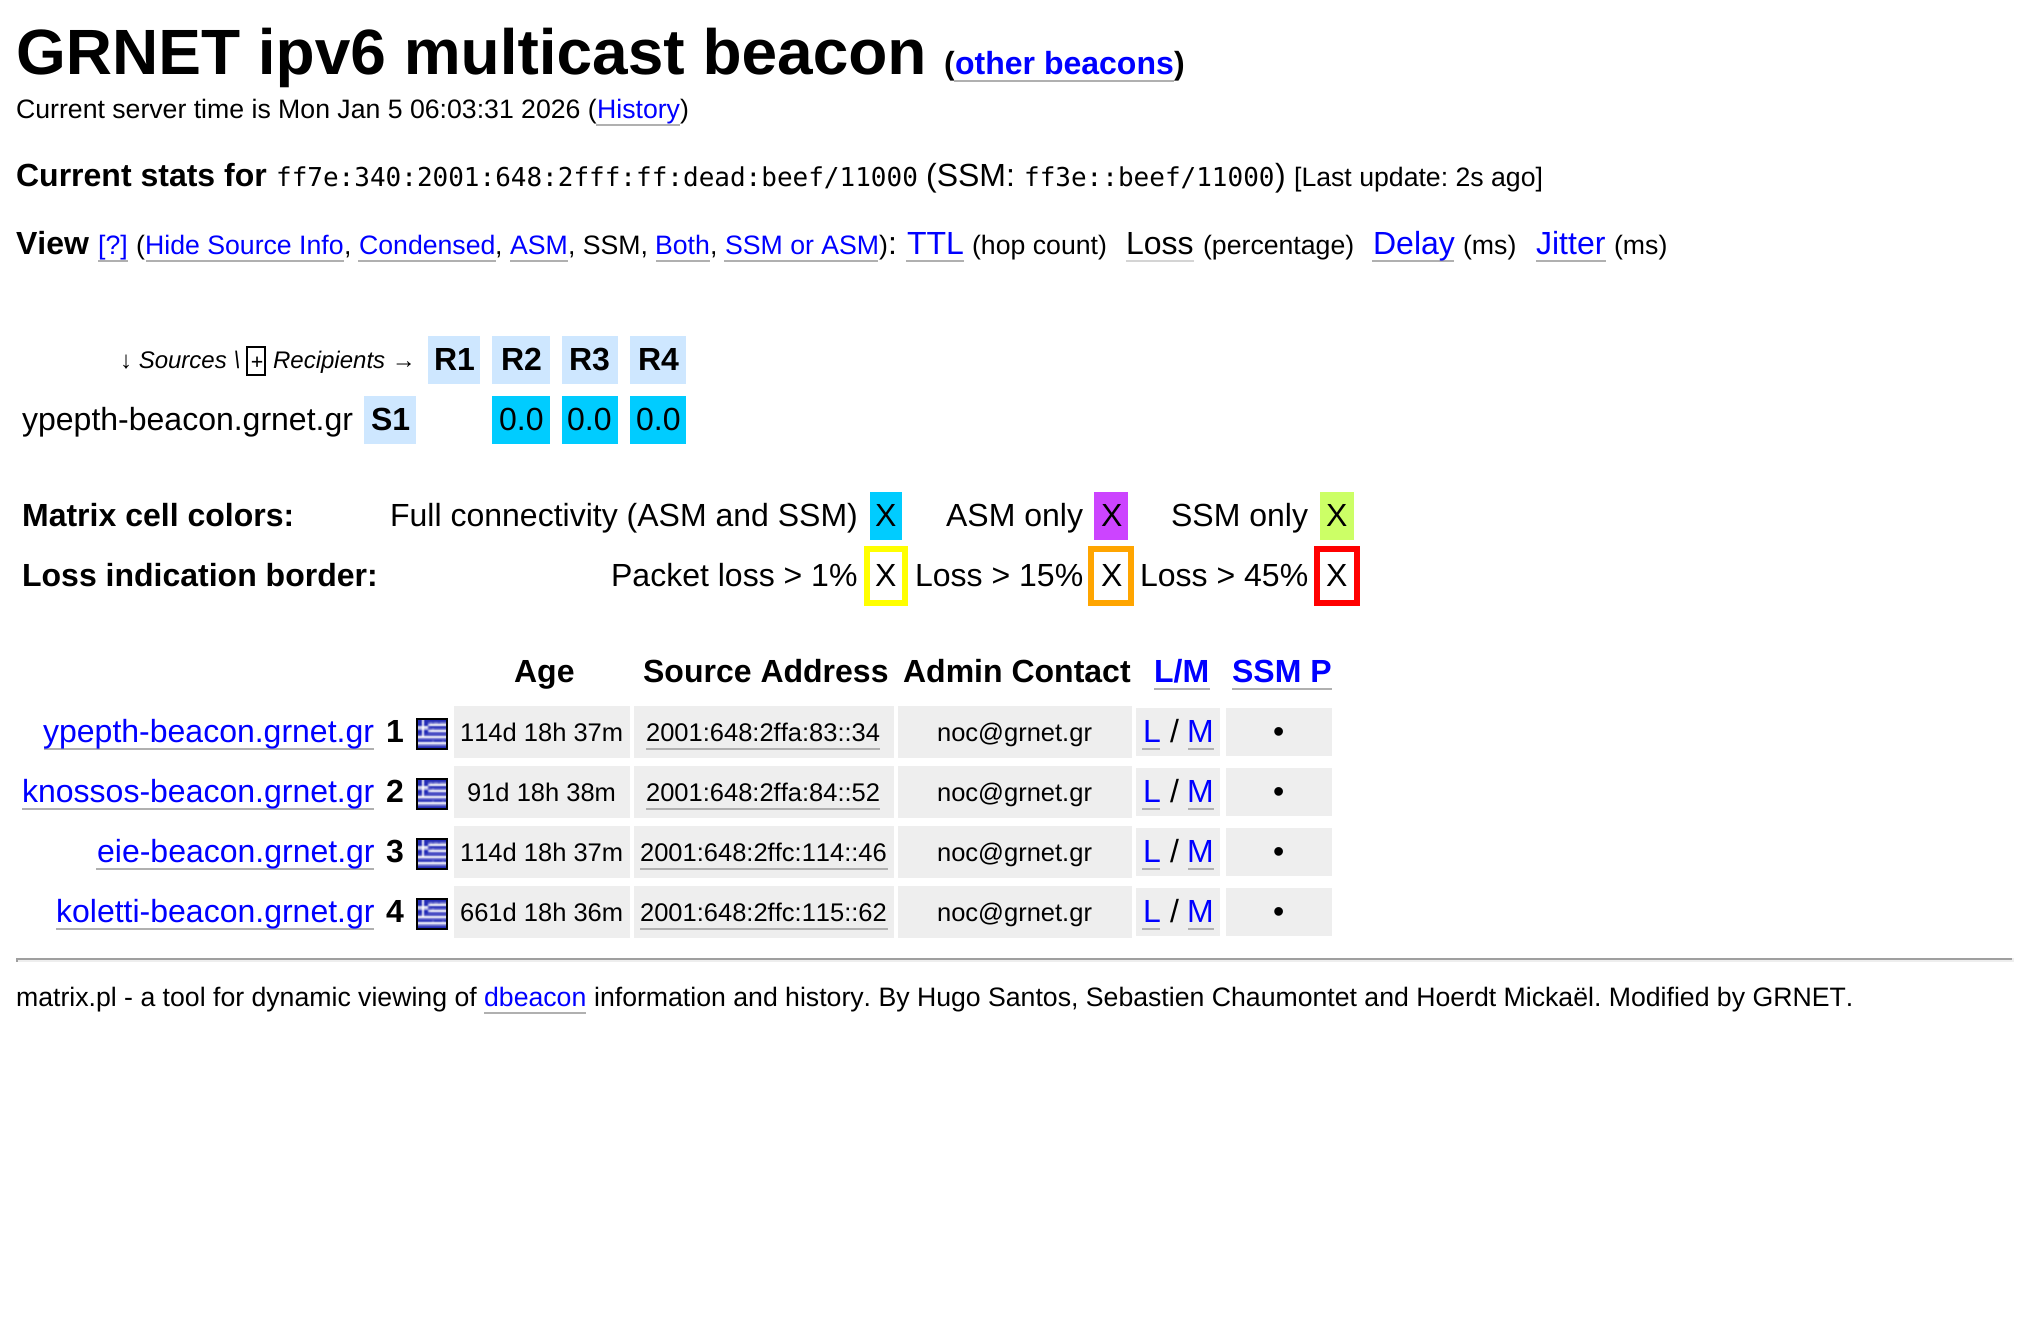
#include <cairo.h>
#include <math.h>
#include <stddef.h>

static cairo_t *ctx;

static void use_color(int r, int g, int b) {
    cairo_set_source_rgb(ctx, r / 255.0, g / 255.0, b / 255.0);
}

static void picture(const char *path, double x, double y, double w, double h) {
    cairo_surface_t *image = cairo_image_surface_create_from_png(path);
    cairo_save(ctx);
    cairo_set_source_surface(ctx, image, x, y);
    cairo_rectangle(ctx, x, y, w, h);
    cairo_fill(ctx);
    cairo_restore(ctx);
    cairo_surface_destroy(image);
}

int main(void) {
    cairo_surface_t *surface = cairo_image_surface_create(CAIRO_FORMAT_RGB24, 2029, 1331);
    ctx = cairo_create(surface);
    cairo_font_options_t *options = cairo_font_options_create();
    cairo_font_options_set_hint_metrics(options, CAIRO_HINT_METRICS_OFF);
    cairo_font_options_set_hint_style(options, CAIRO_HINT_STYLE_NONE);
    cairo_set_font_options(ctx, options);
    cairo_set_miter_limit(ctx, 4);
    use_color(255, 255, 255);
    cairo_paint(ctx);
    cairo_select_font_face(ctx, "Liberation Sans", CAIRO_FONT_SLANT_NORMAL, CAIRO_FONT_WEIGHT_BOLD);
    cairo_set_font_size(ctx, 64);
    use_color(0, 0, 0);
    cairo_move_to(ctx, 16, 74);
    cairo_show_text(ctx, "GRNET ipv6 multicast beacon");
    cairo_set_font_size(ctx, 32);
    cairo_move_to(ctx, 944, 74);
    cairo_show_text(ctx, "(");
    use_color(176, 176, 176);
    cairo_rectangle(ctx, 954, 80, 220, 2);
    cairo_fill(ctx);
    use_color(0, 0, 255);
    cairo_move_to(ctx, 955, 74);
    cairo_show_text(ctx, "other beacons");
    use_color(0, 0, 0);
    cairo_move_to(ctx, 1174, 74);
    cairo_show_text(ctx, ")");
    cairo_select_font_face(ctx, "Liberation Sans", CAIRO_FONT_SLANT_NORMAL, CAIRO_FONT_WEIGHT_NORMAL);
    cairo_set_font_size(ctx, 26.65);
    cairo_move_to(ctx, 16, 118);
    cairo_show_text(ctx, "Current server time is Mon Jan 5 06:03:31 2026 (");
    use_color(176, 176, 176);
    cairo_rectangle(ctx, 596, 124, 84, 2);
    cairo_fill(ctx);
    use_color(0, 0, 255);
    cairo_move_to(ctx, 597, 118);
    cairo_show_text(ctx, "History");
    use_color(0, 0, 0);
    cairo_move_to(ctx, 680, 118);
    cairo_show_text(ctx, ")");
    cairo_select_font_face(ctx, "Liberation Sans", CAIRO_FONT_SLANT_NORMAL, CAIRO_FONT_WEIGHT_BOLD);
    cairo_set_font_size(ctx, 32);
    cairo_move_to(ctx, 16, 186);
    cairo_show_text(ctx, "Current stats for");
    cairo_select_font_face(ctx, "DejaVu Sans Mono", CAIRO_FONT_SLANT_NORMAL, CAIRO_FONT_WEIGHT_NORMAL);
    cairo_set_font_size(ctx, 26);
    cairo_move_to(ctx, 276, 186);
    cairo_show_text(ctx, "ff7e:340:2001:648:2fff:ff:dead:beef/11000");
    cairo_select_font_face(ctx, "Liberation Sans", CAIRO_FONT_SLANT_NORMAL, CAIRO_FONT_WEIGHT_NORMAL);
    cairo_set_font_size(ctx, 32);
    cairo_move_to(ctx, 926, 186);
    cairo_show_text(ctx, "(SSM:");
    cairo_select_font_face(ctx, "DejaVu Sans Mono", CAIRO_FONT_SLANT_NORMAL, CAIRO_FONT_WEIGHT_NORMAL);
    cairo_set_font_size(ctx, 26);
    cairo_move_to(ctx, 1024, 186);
    cairo_show_text(ctx, "ff3e::beef/11000");
    cairo_select_font_face(ctx, "Liberation Sans", CAIRO_FONT_SLANT_NORMAL, CAIRO_FONT_WEIGHT_NORMAL);
    cairo_set_font_size(ctx, 32);
    cairo_move_to(ctx, 1275, 186);
    cairo_show_text(ctx, ")");
    cairo_set_font_size(ctx, 26.65);
    cairo_move_to(ctx, 1294, 186);
    cairo_show_text(ctx, "[Last update: 2s ago]");
    cairo_select_font_face(ctx, "Liberation Sans", CAIRO_FONT_SLANT_NORMAL, CAIRO_FONT_WEIGHT_BOLD);
    cairo_set_font_size(ctx, 32);
    cairo_move_to(ctx, 16, 254);
    cairo_show_text(ctx, "View");
    cairo_select_font_face(ctx, "Liberation Sans", CAIRO_FONT_SLANT_NORMAL, CAIRO_FONT_WEIGHT_NORMAL);
    cairo_set_font_size(ctx, 26.65);
    use_color(0, 0, 255);
    cairo_move_to(ctx, 98, 254);
    cairo_show_text(ctx, "[?]");
    use_color(176, 176, 176);
    cairo_rectangle(ctx, 98, 260, 30, 2);
    cairo_fill(ctx);
    use_color(0, 0, 0);
    cairo_move_to(ctx, 136, 254);
    cairo_show_text(ctx, "(");
    use_color(0, 0, 255);
    cairo_move_to(ctx, 145, 254);
    cairo_show_text(ctx, "Hide Source Info");
    use_color(0, 0, 0);
    cairo_move_to(ctx, 344, 254);
    cairo_show_text(ctx, ",");
    use_color(176, 176, 176);
    cairo_rectangle(ctx, 146, 260, 198, 2);
    cairo_fill(ctx);
    use_color(0, 0, 255);
    cairo_move_to(ctx, 359, 254);
    cairo_show_text(ctx, "Condensed");
    use_color(0, 0, 0);
    cairo_move_to(ctx, 495, 254);
    cairo_show_text(ctx, ",");
    use_color(176, 176, 176);
    cairo_rectangle(ctx, 358, 260, 138, 2);
    cairo_fill(ctx);
    cairo_rectangle(ctx, 510, 260, 58, 2);
    cairo_fill(ctx);
    use_color(0, 0, 255);
    cairo_move_to(ctx, 510, 254);
    cairo_show_text(ctx, "ASM");
    use_color(0, 0, 0);
    cairo_move_to(ctx, 568, 254);
    cairo_show_text(ctx, ", SSM,");
    use_color(0, 0, 255);
    cairo_move_to(ctx, 655, 254);
    cairo_show_text(ctx, "Both");
    use_color(0, 0, 0);
    cairo_move_to(ctx, 710, 254);
    cairo_show_text(ctx, ",");
    use_color(176, 176, 176);
    cairo_rectangle(ctx, 656, 260, 54, 2);
    cairo_fill(ctx);
    cairo_rectangle(ctx, 724, 260, 154, 2);
    cairo_fill(ctx);
    use_color(0, 0, 255);
    cairo_move_to(ctx, 725, 254);
    cairo_show_text(ctx, "SSM or ASM");
    use_color(0, 0, 0);
    cairo_move_to(ctx, 879, 254);
    cairo_show_text(ctx, ")");
    cairo_set_font_size(ctx, 32);
    cairo_move_to(ctx, 888, 254);
    cairo_show_text(ctx, ":");
    use_color(0, 0, 255);
    cairo_move_to(ctx, 907, 254);
    cairo_show_text(ctx, "TTL");
    use_color(176, 176, 176);
    cairo_rectangle(ctx, 906, 260, 58, 2);
    cairo_fill(ctx);
    cairo_set_font_size(ctx, 26.65);
    use_color(0, 0, 0);
    cairo_move_to(ctx, 972, 254);
    cairo_show_text(ctx, "(hop count)");
    cairo_set_font_size(ctx, 32);
    cairo_move_to(ctx, 1126, 254);
    cairo_show_text(ctx, "Loss");
    use_color(212, 212, 212);
    cairo_rectangle(ctx, 1126, 260, 68, 2);
    cairo_fill(ctx);
    cairo_set_font_size(ctx, 26.65);
    use_color(0, 0, 0);
    cairo_move_to(ctx, 1203, 254);
    cairo_show_text(ctx, "(percentage)");
    use_color(176, 176, 176);
    cairo_rectangle(ctx, 1372, 260, 82, 2);
    cairo_fill(ctx);
    cairo_set_font_size(ctx, 32);
    use_color(0, 0, 255);
    cairo_move_to(ctx, 1373, 254);
    cairo_show_text(ctx, "Delay");
    cairo_set_font_size(ctx, 26.65);
    use_color(0, 0, 0);
    cairo_move_to(ctx, 1463, 254);
    cairo_show_text(ctx, "(ms)");
    cairo_set_font_size(ctx, 32);
    use_color(0, 0, 255);
    cairo_move_to(ctx, 1536, 254);
    cairo_show_text(ctx, "Jitter");
    use_color(176, 176, 176);
    cairo_rectangle(ctx, 1536, 260, 70, 2);
    cairo_fill(ctx);
    cairo_set_font_size(ctx, 26.65);
    use_color(0, 0, 0);
    cairo_move_to(ctx, 1614, 254);
    cairo_show_text(ctx, "(ms)");
    cairo_select_font_face(ctx, "Liberation Sans", CAIRO_FONT_SLANT_ITALIC, CAIRO_FONT_WEIGHT_NORMAL);
    cairo_set_font_size(ctx, 24);
    cairo_move_to(ctx, 120, 368);
    cairo_show_text(ctx, "↓ Sources \\");
    cairo_rectangle(ctx, 247, 347, 18, 28);
    cairo_stroke(ctx);
    cairo_select_font_face(ctx, "DejaVu Sans Mono", CAIRO_FONT_SLANT_NORMAL, CAIRO_FONT_WEIGHT_NORMAL);
    cairo_set_font_size(ctx, 20);
    cairo_move_to(ctx, 251, 368);
    cairo_show_text(ctx, "+");
    cairo_select_font_face(ctx, "Liberation Sans", CAIRO_FONT_SLANT_ITALIC, CAIRO_FONT_WEIGHT_NORMAL);
    cairo_set_font_size(ctx, 24);
    cairo_move_to(ctx, 273, 368);
    cairo_show_text(ctx, "Recipients →");
    use_color(206, 231, 255);
    cairo_rectangle(ctx, 428, 336, 52, 48);
    cairo_fill(ctx);
    cairo_select_font_face(ctx, "Liberation Sans", CAIRO_FONT_SLANT_NORMAL, CAIRO_FONT_WEIGHT_BOLD);
    cairo_set_font_size(ctx, 32);
    use_color(0, 0, 0);
    cairo_move_to(ctx, 434, 370);
    cairo_show_text(ctx, "R1");
    use_color(206, 231, 255);
    cairo_rectangle(ctx, 492, 336, 58, 48);
    cairo_fill(ctx);
    use_color(0, 0, 0);
    cairo_move_to(ctx, 501, 370);
    cairo_show_text(ctx, "R2");
    use_color(206, 231, 255);
    cairo_rectangle(ctx, 562, 336, 56, 48);
    cairo_fill(ctx);
    use_color(0, 0, 0);
    cairo_move_to(ctx, 569, 370);
    cairo_show_text(ctx, "R3");
    use_color(206, 231, 255);
    cairo_rectangle(ctx, 630, 336, 56, 48);
    cairo_fill(ctx);
    use_color(0, 0, 0);
    cairo_move_to(ctx, 638, 370);
    cairo_show_text(ctx, "R4");
    cairo_select_font_face(ctx, "Liberation Sans", CAIRO_FONT_SLANT_NORMAL, CAIRO_FONT_WEIGHT_NORMAL);
    cairo_move_to(ctx, 22, 430);
    cairo_show_text(ctx, "ypepth-beacon.grnet.gr");
    use_color(206, 231, 255);
    cairo_rectangle(ctx, 364, 396, 52, 48);
    cairo_fill(ctx);
    cairo_select_font_face(ctx, "Liberation Sans", CAIRO_FONT_SLANT_NORMAL, CAIRO_FONT_WEIGHT_BOLD);
    use_color(0, 0, 0);
    cairo_move_to(ctx, 371, 430);
    cairo_show_text(ctx, "S1");
    use_color(0, 204, 255);
    cairo_rectangle(ctx, 492, 396, 58, 48);
    cairo_fill(ctx);
    cairo_select_font_face(ctx, "Liberation Sans", CAIRO_FONT_SLANT_NORMAL, CAIRO_FONT_WEIGHT_NORMAL);
    use_color(0, 0, 0);
    cairo_move_to(ctx, 499, 430);
    cairo_show_text(ctx, "0.0");
    use_color(0, 204, 255);
    cairo_rectangle(ctx, 562, 396, 56, 48);
    cairo_fill(ctx);
    use_color(0, 0, 0);
    cairo_move_to(ctx, 567, 430);
    cairo_show_text(ctx, "0.0");
    use_color(0, 204, 255);
    cairo_rectangle(ctx, 630, 396, 56, 48);
    cairo_fill(ctx);
    use_color(0, 0, 0);
    cairo_move_to(ctx, 636, 430);
    cairo_show_text(ctx, "0.0");
    cairo_select_font_face(ctx, "Liberation Sans", CAIRO_FONT_SLANT_NORMAL, CAIRO_FONT_WEIGHT_BOLD);
    cairo_move_to(ctx, 22, 526);
    cairo_show_text(ctx, "Matrix cell colors:");
    cairo_select_font_face(ctx, "Liberation Sans", CAIRO_FONT_SLANT_NORMAL, CAIRO_FONT_WEIGHT_NORMAL);
    cairo_move_to(ctx, 390, 526);
    cairo_show_text(ctx, "Full connectivity (ASM and SSM)");
    use_color(0, 204, 255);
    cairo_rectangle(ctx, 870, 492, 32, 48);
    cairo_fill(ctx);
    use_color(0, 0, 0);
    cairo_move_to(ctx, 875, 526);
    cairo_show_text(ctx, "X");
    cairo_move_to(ctx, 946, 526);
    cairo_show_text(ctx, "ASM only");
    use_color(204, 68, 255);
    cairo_rectangle(ctx, 1094, 492, 34, 48);
    cairo_fill(ctx);
    use_color(0, 0, 0);
    cairo_move_to(ctx, 1101, 526);
    cairo_show_text(ctx, "X");
    cairo_move_to(ctx, 1171, 526);
    cairo_show_text(ctx, "SSM only");
    use_color(204, 255, 102);
    cairo_rectangle(ctx, 1320, 492, 34, 48);
    cairo_fill(ctx);
    use_color(0, 0, 0);
    cairo_move_to(ctx, 1326, 526);
    cairo_show_text(ctx, "X");
    cairo_select_font_face(ctx, "Liberation Sans", CAIRO_FONT_SLANT_NORMAL, CAIRO_FONT_WEIGHT_BOLD);
    cairo_move_to(ctx, 22, 586);
    cairo_show_text(ctx, "Loss indication border:");
    cairo_select_font_face(ctx, "Liberation Sans", CAIRO_FONT_SLANT_NORMAL, CAIRO_FONT_WEIGHT_NORMAL);
    cairo_move_to(ctx, 611, 586);
    cairo_show_text(ctx, "Packet loss > 1%");
    cairo_rectangle(ctx, 867, 549, 38, 54);
    use_color(255, 255, 0);
    cairo_set_line_width(ctx, 6);
    cairo_stroke(ctx);
    use_color(0, 0, 0);
    cairo_move_to(ctx, 875, 586);
    cairo_show_text(ctx, "X");
    cairo_move_to(ctx, 915, 586);
    cairo_show_text(ctx, "Loss > 15%");
    cairo_rectangle(ctx, 1091, 549, 40, 54);
    use_color(255, 165, 0);
    cairo_stroke(ctx);
    use_color(0, 0, 0);
    cairo_move_to(ctx, 1101, 586);
    cairo_show_text(ctx, "X");
    cairo_move_to(ctx, 1140, 586);
    cairo_show_text(ctx, "Loss > 45%");
    cairo_rectangle(ctx, 1317, 549, 40, 54);
    use_color(255, 0, 0);
    cairo_stroke(ctx);
    use_color(0, 0, 0);
    cairo_move_to(ctx, 1326, 586);
    cairo_show_text(ctx, "X");
    cairo_select_font_face(ctx, "Liberation Sans", CAIRO_FONT_SLANT_NORMAL, CAIRO_FONT_WEIGHT_BOLD);
    cairo_move_to(ctx, 514, 682);
    cairo_show_text(ctx, "Age");
    cairo_move_to(ctx, 643, 682);
    cairo_show_text(ctx, "Source Address");
    cairo_move_to(ctx, 903, 682);
    cairo_show_text(ctx, "Admin Contact");
    use_color(0, 0, 255);
    cairo_move_to(ctx, 1154, 682);
    cairo_show_text(ctx, "L/M");
    use_color(176, 176, 176);
    cairo_rectangle(ctx, 1154, 688, 56, 2);
    cairo_fill(ctx);
    use_color(0, 0, 255);
    cairo_move_to(ctx, 1232, 682);
    cairo_show_text(ctx, "SSM P");
    use_color(176, 176, 176);
    cairo_rectangle(ctx, 1232, 688, 100, 2);
    cairo_fill(ctx);
    cairo_rectangle(ctx, 44, 748, 330, 2);
    cairo_fill(ctx);
    cairo_select_font_face(ctx, "Liberation Sans", CAIRO_FONT_SLANT_NORMAL, CAIRO_FONT_WEIGHT_NORMAL);
    use_color(0, 0, 255);
    cairo_move_to(ctx, 43, 742);
    cairo_show_text(ctx, "ypepth-beacon.grnet.gr");
    cairo_select_font_face(ctx, "Liberation Sans", CAIRO_FONT_SLANT_NORMAL, CAIRO_FONT_WEIGHT_BOLD);
    use_color(0, 0, 0);
    cairo_move_to(ctx, 386, 742);
    cairo_show_text(ctx, "1");
    cairo_rectangle(ctx, 417, 719, 30, 30);
    cairo_set_line_width(ctx, 2);
    cairo_stroke(ctx);
    picture("img1.png", 418, 720, 28, 28);
    use_color(238, 238, 238);
    cairo_rectangle(ctx, 454, 706, 176, 52);
    cairo_fill(ctx);
    cairo_select_font_face(ctx, "Liberation Sans", CAIRO_FONT_SLANT_NORMAL, CAIRO_FONT_WEIGHT_NORMAL);
    cairo_set_font_size(ctx, 25.5);
    use_color(0, 0, 0);
    cairo_move_to(ctx, 460, 741);
    cairo_show_text(ctx, "114d 18h 37m");
    use_color(238, 238, 238);
    cairo_rectangle(ctx, 634, 706, 260, 52);
    cairo_fill(ctx);
    use_color(0, 0, 0);
    cairo_move_to(ctx, 646, 741);
    cairo_show_text(ctx, "2001:648:2ffa:83::34");
    use_color(176, 176, 176);
    cairo_rectangle(ctx, 646, 748, 234, 2);
    cairo_fill(ctx);
    use_color(238, 238, 238);
    cairo_rectangle(ctx, 898, 706, 234, 52);
    cairo_fill(ctx);
    use_color(0, 0, 0);
    cairo_move_to(ctx, 937, 741);
    cairo_show_text(ctx, "noc@grnet.gr");
    use_color(238, 238, 238);
    cairo_rectangle(ctx, 1136, 708, 84, 48);
    cairo_fill(ctx);
    cairo_set_font_size(ctx, 32);
    use_color(0, 0, 255);
    cairo_move_to(ctx, 1143, 742);
    cairo_show_text(ctx, "L");
    use_color(176, 176, 176);
    cairo_rectangle(ctx, 1142, 748, 18, 2);
    cairo_fill(ctx);
    use_color(0, 0, 0);
    cairo_move_to(ctx, 1170, 742);
    cairo_show_text(ctx, "/");
    use_color(0, 0, 255);
    cairo_move_to(ctx, 1187, 742);
    cairo_show_text(ctx, "M");
    use_color(176, 176, 176);
    cairo_rectangle(ctx, 1188, 748, 26, 2);
    cairo_fill(ctx);
    use_color(238, 238, 238);
    cairo_rectangle(ctx, 1226, 708, 106, 48);
    cairo_fill(ctx);
    use_color(0, 0, 0);
    cairo_move_to(ctx, 1273, 742);
    cairo_show_text(ctx, "•");
    use_color(176, 176, 176);
    cairo_rectangle(ctx, 22, 808, 352, 2);
    cairo_fill(ctx);
    use_color(0, 0, 255);
    cairo_move_to(ctx, 22, 802);
    cairo_show_text(ctx, "knossos-beacon.grnet.gr");
    cairo_select_font_face(ctx, "Liberation Sans", CAIRO_FONT_SLANT_NORMAL, CAIRO_FONT_WEIGHT_BOLD);
    use_color(0, 0, 0);
    cairo_move_to(ctx, 386, 802);
    cairo_show_text(ctx, "2");
    cairo_rectangle(ctx, 417, 779, 30, 30);
    cairo_stroke(ctx);
    picture("img1.png", 418, 780, 28, 28);
    use_color(238, 238, 238);
    cairo_rectangle(ctx, 454, 766, 176, 52);
    cairo_fill(ctx);
    cairo_select_font_face(ctx, "Liberation Sans", CAIRO_FONT_SLANT_NORMAL, CAIRO_FONT_WEIGHT_NORMAL);
    cairo_set_font_size(ctx, 25.5);
    use_color(0, 0, 0);
    cairo_move_to(ctx, 467, 801);
    cairo_show_text(ctx, "91d 18h 38m");
    use_color(238, 238, 238);
    cairo_rectangle(ctx, 634, 766, 260, 52);
    cairo_fill(ctx);
    use_color(0, 0, 0);
    cairo_move_to(ctx, 646, 801);
    cairo_show_text(ctx, "2001:648:2ffa:84::52");
    use_color(176, 176, 176);
    cairo_rectangle(ctx, 646, 808, 234, 2);
    cairo_fill(ctx);
    use_color(238, 238, 238);
    cairo_rectangle(ctx, 898, 766, 234, 52);
    cairo_fill(ctx);
    use_color(0, 0, 0);
    cairo_move_to(ctx, 937, 801);
    cairo_show_text(ctx, "noc@grnet.gr");
    use_color(238, 238, 238);
    cairo_rectangle(ctx, 1136, 768, 84, 48);
    cairo_fill(ctx);
    cairo_set_font_size(ctx, 32);
    use_color(0, 0, 255);
    cairo_move_to(ctx, 1143, 802);
    cairo_show_text(ctx, "L");
    use_color(176, 176, 176);
    cairo_rectangle(ctx, 1142, 808, 18, 2);
    cairo_fill(ctx);
    use_color(0, 0, 0);
    cairo_move_to(ctx, 1170, 802);
    cairo_show_text(ctx, "/");
    use_color(0, 0, 255);
    cairo_move_to(ctx, 1187, 802);
    cairo_show_text(ctx, "M");
    use_color(176, 176, 176);
    cairo_rectangle(ctx, 1188, 808, 26, 2);
    cairo_fill(ctx);
    use_color(238, 238, 238);
    cairo_rectangle(ctx, 1226, 768, 106, 48);
    cairo_fill(ctx);
    use_color(0, 0, 0);
    cairo_move_to(ctx, 1273, 802);
    cairo_show_text(ctx, "•");
    use_color(176, 176, 176);
    cairo_rectangle(ctx, 96, 868, 278, 2);
    cairo_fill(ctx);
    use_color(0, 0, 255);
    cairo_move_to(ctx, 97, 862);
    cairo_show_text(ctx, "eie-beacon.grnet.gr");
    cairo_select_font_face(ctx, "Liberation Sans", CAIRO_FONT_SLANT_NORMAL, CAIRO_FONT_WEIGHT_BOLD);
    use_color(0, 0, 0);
    cairo_move_to(ctx, 386, 862);
    cairo_show_text(ctx, "3");
    cairo_rectangle(ctx, 417, 839, 30, 30);
    cairo_stroke(ctx);
    picture("img1.png", 418, 840, 28, 28);
    use_color(238, 238, 238);
    cairo_rectangle(ctx, 454, 826, 176, 52);
    cairo_fill(ctx);
    cairo_select_font_face(ctx, "Liberation Sans", CAIRO_FONT_SLANT_NORMAL, CAIRO_FONT_WEIGHT_NORMAL);
    cairo_set_font_size(ctx, 25.5);
    use_color(0, 0, 0);
    cairo_move_to(ctx, 460, 861);
    cairo_show_text(ctx, "114d 18h 37m");
    use_color(238, 238, 238);
    cairo_rectangle(ctx, 634, 826, 260, 52);
    cairo_fill(ctx);
    use_color(0, 0, 0);
    cairo_move_to(ctx, 640, 861);
    cairo_show_text(ctx, "2001:648:2ffc:114::46");
    use_color(176, 176, 176);
    cairo_rectangle(ctx, 640, 868, 248, 2);
    cairo_fill(ctx);
    use_color(238, 238, 238);
    cairo_rectangle(ctx, 898, 826, 234, 52);
    cairo_fill(ctx);
    use_color(0, 0, 0);
    cairo_move_to(ctx, 937, 861);
    cairo_show_text(ctx, "noc@grnet.gr");
    use_color(238, 238, 238);
    cairo_rectangle(ctx, 1136, 828, 84, 48);
    cairo_fill(ctx);
    cairo_set_font_size(ctx, 32);
    use_color(0, 0, 255);
    cairo_move_to(ctx, 1143, 862);
    cairo_show_text(ctx, "L");
    use_color(176, 176, 176);
    cairo_rectangle(ctx, 1142, 868, 18, 2);
    cairo_fill(ctx);
    use_color(0, 0, 0);
    cairo_move_to(ctx, 1170, 862);
    cairo_show_text(ctx, "/");
    use_color(0, 0, 255);
    cairo_move_to(ctx, 1187, 862);
    cairo_show_text(ctx, "M");
    use_color(176, 176, 176);
    cairo_rectangle(ctx, 1188, 868, 26, 2);
    cairo_fill(ctx);
    use_color(238, 238, 238);
    cairo_rectangle(ctx, 1226, 828, 106, 48);
    cairo_fill(ctx);
    use_color(0, 0, 0);
    cairo_move_to(ctx, 1273, 862);
    cairo_show_text(ctx, "•");
    use_color(176, 176, 176);
    cairo_rectangle(ctx, 56, 928, 318, 2);
    cairo_fill(ctx);
    use_color(0, 0, 255);
    cairo_move_to(ctx, 56, 922);
    cairo_show_text(ctx, "koletti-beacon.grnet.gr");
    cairo_select_font_face(ctx, "Liberation Sans", CAIRO_FONT_SLANT_NORMAL, CAIRO_FONT_WEIGHT_BOLD);
    use_color(0, 0, 0);
    cairo_move_to(ctx, 386, 922);
    cairo_show_text(ctx, "4");
    cairo_rectangle(ctx, 417, 899, 30, 30);
    cairo_stroke(ctx);
    picture("img1.png", 418, 900, 28, 28);
    use_color(238, 238, 238);
    cairo_rectangle(ctx, 454, 886, 176, 52);
    cairo_fill(ctx);
    cairo_select_font_face(ctx, "Liberation Sans", CAIRO_FONT_SLANT_NORMAL, CAIRO_FONT_WEIGHT_NORMAL);
    cairo_set_font_size(ctx, 25.5);
    use_color(0, 0, 0);
    cairo_move_to(ctx, 460, 921);
    cairo_show_text(ctx, "661d 18h 36m");
    use_color(238, 238, 238);
    cairo_rectangle(ctx, 634, 886, 260, 52);
    cairo_fill(ctx);
    use_color(0, 0, 0);
    cairo_move_to(ctx, 640, 921);
    cairo_show_text(ctx, "2001:648:2ffc:115::62");
    use_color(176, 176, 176);
    cairo_rectangle(ctx, 640, 928, 248, 2);
    cairo_fill(ctx);
    use_color(238, 238, 238);
    cairo_rectangle(ctx, 898, 886, 234, 52);
    cairo_fill(ctx);
    use_color(0, 0, 0);
    cairo_move_to(ctx, 937, 921);
    cairo_show_text(ctx, "noc@grnet.gr");
    use_color(238, 238, 238);
    cairo_rectangle(ctx, 1136, 888, 84, 48);
    cairo_fill(ctx);
    cairo_set_font_size(ctx, 32);
    use_color(0, 0, 255);
    cairo_move_to(ctx, 1143, 922);
    cairo_show_text(ctx, "L");
    use_color(176, 176, 176);
    cairo_rectangle(ctx, 1142, 928, 18, 2);
    cairo_fill(ctx);
    use_color(0, 0, 0);
    cairo_move_to(ctx, 1170, 922);
    cairo_show_text(ctx, "/");
    use_color(0, 0, 255);
    cairo_move_to(ctx, 1187, 922);
    cairo_show_text(ctx, "M");
    use_color(176, 176, 176);
    cairo_rectangle(ctx, 1188, 928, 26, 2);
    cairo_fill(ctx);
    use_color(238, 238, 238);
    cairo_rectangle(ctx, 1226, 888, 106, 48);
    cairo_fill(ctx);
    use_color(0, 0, 0);
    cairo_move_to(ctx, 1273, 922);
    cairo_show_text(ctx, "•");
    use_color(159, 159, 159);
    cairo_rectangle(ctx, 16, 958, 1998, 2);
    cairo_fill(ctx);
    use_color(238, 238, 238);
    cairo_rectangle(ctx, 2012, 958, 2, 4);
    cairo_fill(ctx);
    cairo_rectangle(ctx, 16, 960, 1998, 2);
    cairo_fill(ctx);
    use_color(159, 159, 159);
    cairo_rectangle(ctx, 16, 958, 2, 4);
    cairo_fill(ctx);
    cairo_set_font_size(ctx, 26.65);
    use_color(0, 0, 0);
    cairo_move_to(ctx, 16, 1006);
    cairo_show_text(ctx, "matrix.pl - a tool for dynamic viewing of");
    use_color(0, 0, 255);
    cairo_move_to(ctx, 484, 1006);
    cairo_show_text(ctx, "dbeacon");
    use_color(176, 176, 176);
    cairo_rectangle(ctx, 484, 1012, 102, 2);
    cairo_fill(ctx);
    use_color(0, 0, 0);
    cairo_move_to(ctx, 594, 1006);
    cairo_show_text(ctx, "information and history. By Hugo Santos, Sebastien Chaumontet and Hoerdt Mickaël. Modified by GRNET.");
    cairo_surface_write_to_png(surface, "result.png");
    cairo_font_options_destroy(options);
    cairo_destroy(ctx);
    cairo_surface_destroy(surface);
    return 0;
}
